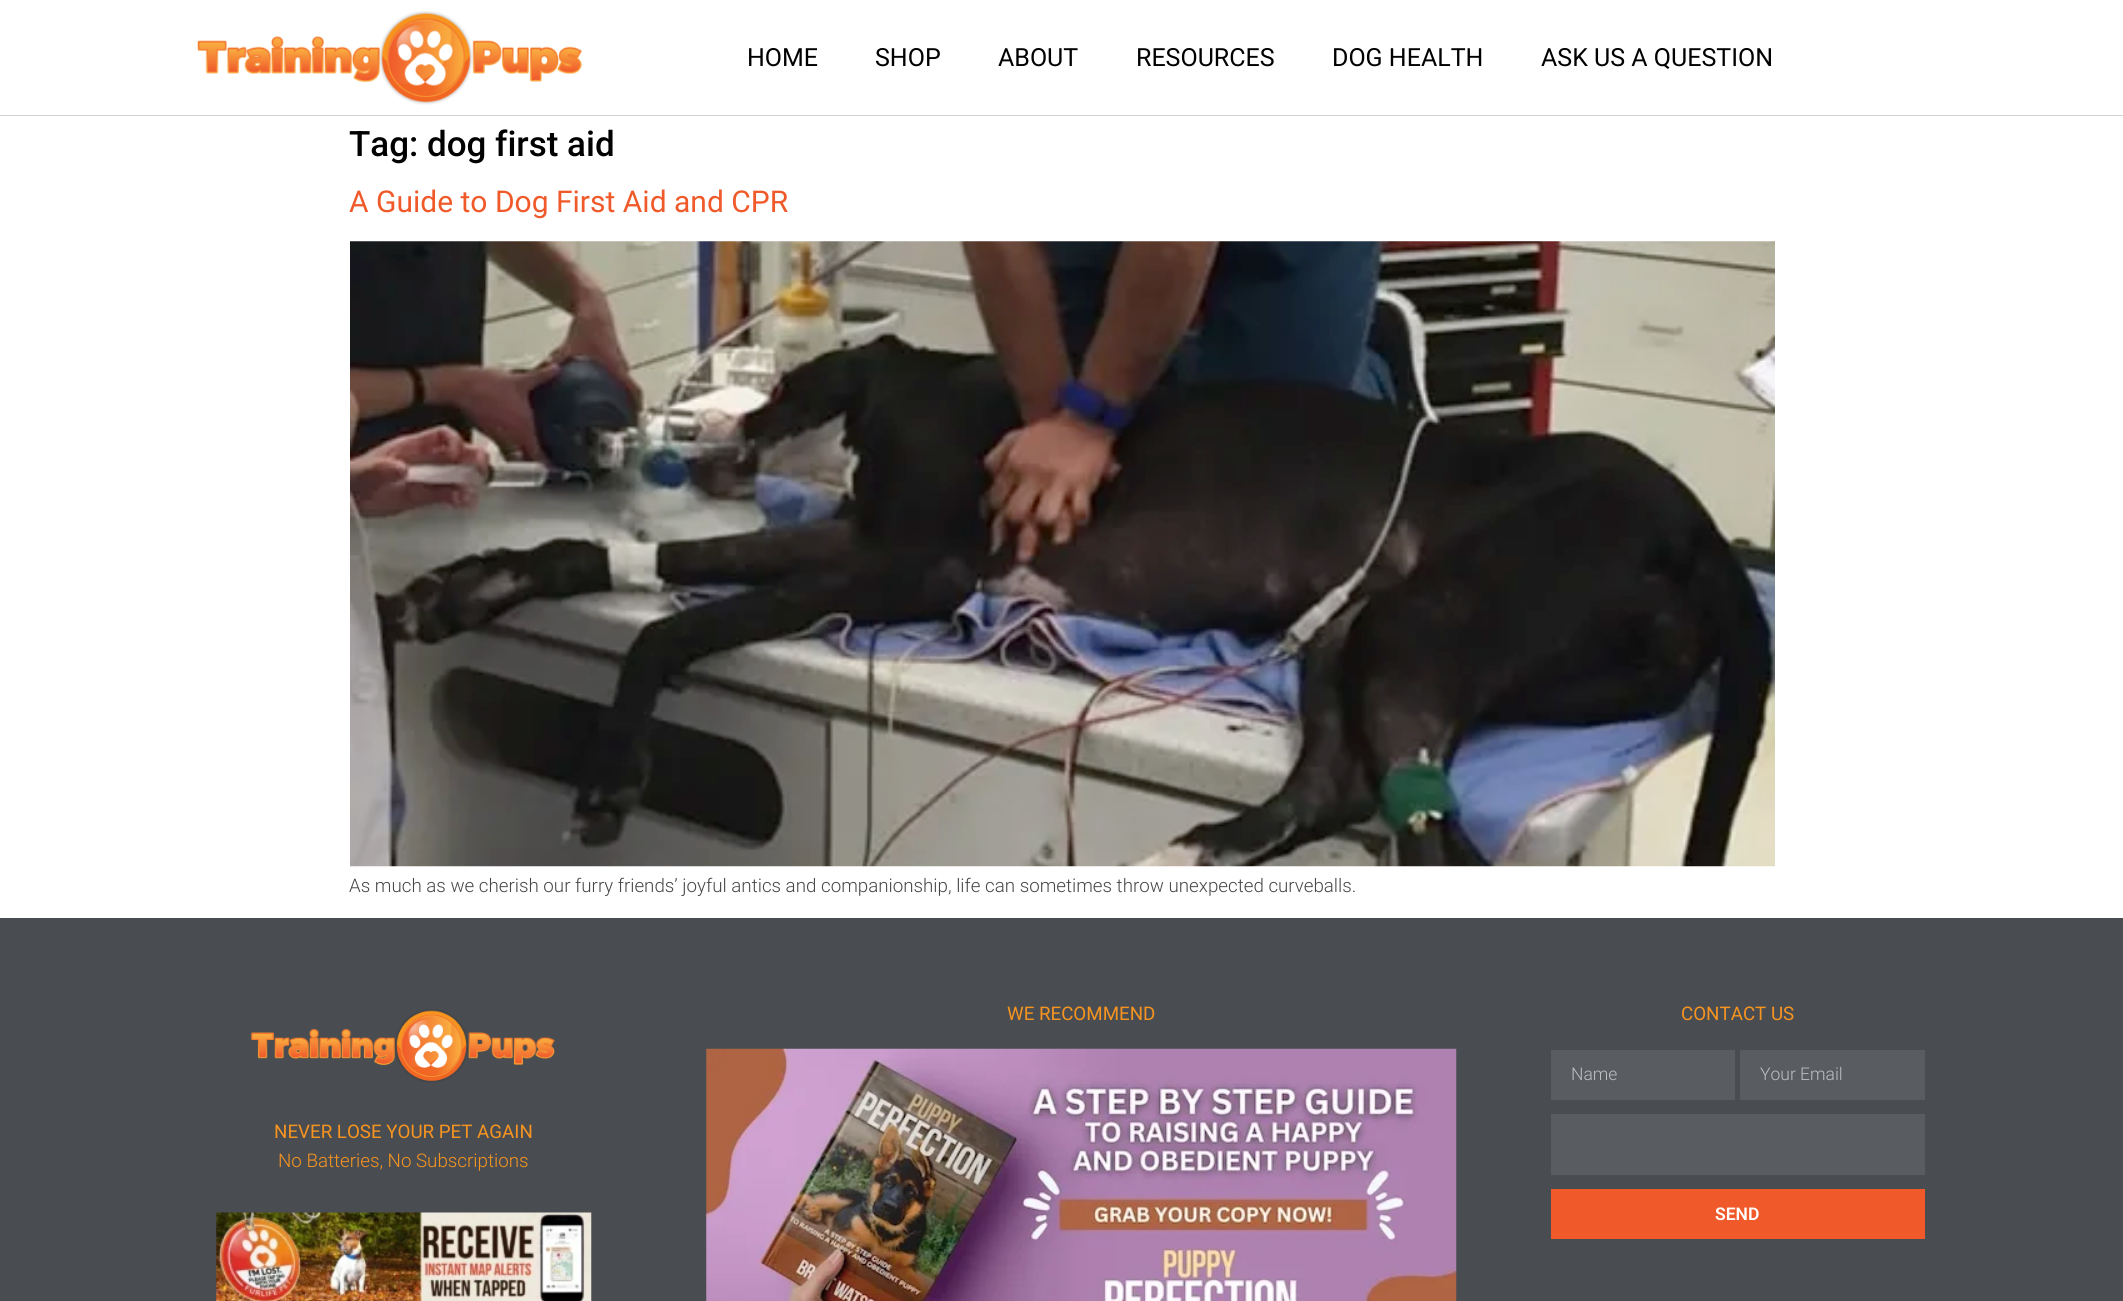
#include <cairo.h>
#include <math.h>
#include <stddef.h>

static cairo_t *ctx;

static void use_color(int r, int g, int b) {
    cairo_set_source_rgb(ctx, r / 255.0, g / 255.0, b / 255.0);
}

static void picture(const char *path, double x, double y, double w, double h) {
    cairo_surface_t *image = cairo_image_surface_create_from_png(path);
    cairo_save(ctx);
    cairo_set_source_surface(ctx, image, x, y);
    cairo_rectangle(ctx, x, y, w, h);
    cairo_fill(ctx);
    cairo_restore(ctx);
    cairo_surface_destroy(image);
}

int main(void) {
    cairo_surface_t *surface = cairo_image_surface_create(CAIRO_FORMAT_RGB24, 2123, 1301);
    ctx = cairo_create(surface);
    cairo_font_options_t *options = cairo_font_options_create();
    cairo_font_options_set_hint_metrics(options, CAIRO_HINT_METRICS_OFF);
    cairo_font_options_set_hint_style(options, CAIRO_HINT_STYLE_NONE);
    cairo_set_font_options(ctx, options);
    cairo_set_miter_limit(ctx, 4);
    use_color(255, 255, 255);
    cairo_paint(ctx);
    use_color(211, 211, 211);
    cairo_rectangle(ctx, 0, 115, 2123, 1);
    cairo_fill(ctx);
    picture("img1.png", 197, 11, 385, 94);
    cairo_select_font_face(ctx, "Roboto", CAIRO_FONT_SLANT_NORMAL, CAIRO_FONT_WEIGHT_NORMAL);
    cairo_set_font_size(ctx, 25);
    use_color(0, 0, 0);
    cairo_move_to(ctx, 747, 66);
    cairo_show_text(ctx, "HOME");
    cairo_move_to(ctx, 875, 66);
    cairo_show_text(ctx, "SHOP");
    cairo_move_to(ctx, 998, 66);
    cairo_show_text(ctx, "ABOUT");
    cairo_move_to(ctx, 1136, 66);
    cairo_show_text(ctx, "RESOURCES");
    cairo_move_to(ctx, 1332, 66);
    cairo_show_text(ctx, "DOG HEALTH");
    cairo_move_to(ctx, 1541, 66);
    cairo_show_text(ctx, "ASK US A QUESTION");
    cairo_select_font_face(ctx, "Roboto Medium", CAIRO_FONT_SLANT_NORMAL, CAIRO_FONT_WEIGHT_NORMAL);
    cairo_set_font_size(ctx, 35);
    cairo_move_to(ctx, 349, 156);
    cairo_show_text(ctx, "Tag: dog first aid");
    cairo_select_font_face(ctx, "Roboto", CAIRO_FONT_SLANT_NORMAL, CAIRO_FONT_WEIGHT_NORMAL);
    cairo_set_font_size(ctx, 30);
    use_color(240, 90, 43);
    cairo_move_to(ctx, 349, 212);
    cairo_show_text(ctx, "A Guide to Dog First Aid and CPR");
    picture("img2.png", 350, 241, 1425, 626);
    cairo_select_font_face(ctx, "Roboto Light", CAIRO_FONT_SLANT_NORMAL, CAIRO_FONT_WEIGHT_NORMAL);
    cairo_set_font_size(ctx, 18.75);
    use_color(72, 71, 71);
    cairo_move_to(ctx, 349, 892);
    cairo_show_text(ctx, "As much as we cherish our furry friends’ joyful antics and companionship, life can sometimes throw unexpected curveballs.");
    use_color(73, 77, 81);
    cairo_rectangle(ctx, 0, 918, 2123, 383);
    cairo_fill(ctx);
    picture("img3.png", 250, 1009, 305, 74);
    cairo_select_font_face(ctx, "Roboto", CAIRO_FONT_SLANT_NORMAL, CAIRO_FONT_WEIGHT_NORMAL);
    use_color(247, 148, 32);
    cairo_move_to(ctx, 274, 1138);
    cairo_show_text(ctx, "NEVER LOSE YOUR PET AGAIN");
    cairo_select_font_face(ctx, "Roboto Light", CAIRO_FONT_SLANT_NORMAL, CAIRO_FONT_WEIGHT_NORMAL);
    cairo_move_to(ctx, 278, 1167);
    cairo_show_text(ctx, "No Batteries, No Subscriptions");
    picture("img4.png", 216, 1212, 376, 89);
    cairo_select_font_face(ctx, "Roboto", CAIRO_FONT_SLANT_NORMAL, CAIRO_FONT_WEIGHT_NORMAL);
    cairo_move_to(ctx, 1007, 1020);
    cairo_show_text(ctx, "WE RECOMMEND");
    picture("img5.png", 706, 1048, 751, 253);
    cairo_move_to(ctx, 1681, 1020);
    cairo_show_text(ctx, "CONTACT US");
    use_color(89, 93, 97);
    cairo_rectangle(ctx, 1551, 1050, 184, 50);
    cairo_fill(ctx);
    cairo_select_font_face(ctx, "Roboto Light", CAIRO_FONT_SLANT_NORMAL, CAIRO_FONT_WEIGHT_NORMAL);
    cairo_set_font_size(ctx, 17.5);
    use_color(189, 190, 192);
    cairo_move_to(ctx, 1571, 1080);
    cairo_show_text(ctx, "Name");
    use_color(89, 93, 97);
    cairo_rectangle(ctx, 1740, 1050, 185, 50);
    cairo_fill(ctx);
    use_color(189, 190, 192);
    cairo_move_to(ctx, 1760, 1080);
    cairo_show_text(ctx, "Your Email");
    use_color(89, 93, 97);
    cairo_rectangle(ctx, 1551, 1114, 374, 61);
    cairo_fill(ctx);
    use_color(240, 90, 43);
    cairo_rectangle(ctx, 1551, 1189, 374, 50);
    cairo_fill(ctx);
    cairo_select_font_face(ctx, "Roboto SemiBold", CAIRO_FONT_SLANT_NORMAL, CAIRO_FONT_WEIGHT_NORMAL);
    use_color(255, 255, 255);
    cairo_move_to(ctx, 1715, 1220);
    cairo_show_text(ctx, "SEND");
    cairo_surface_write_to_png(surface, "result.png");
    cairo_font_options_destroy(options);
    cairo_destroy(ctx);
    cairo_surface_destroy(surface);
    return 0;
}
